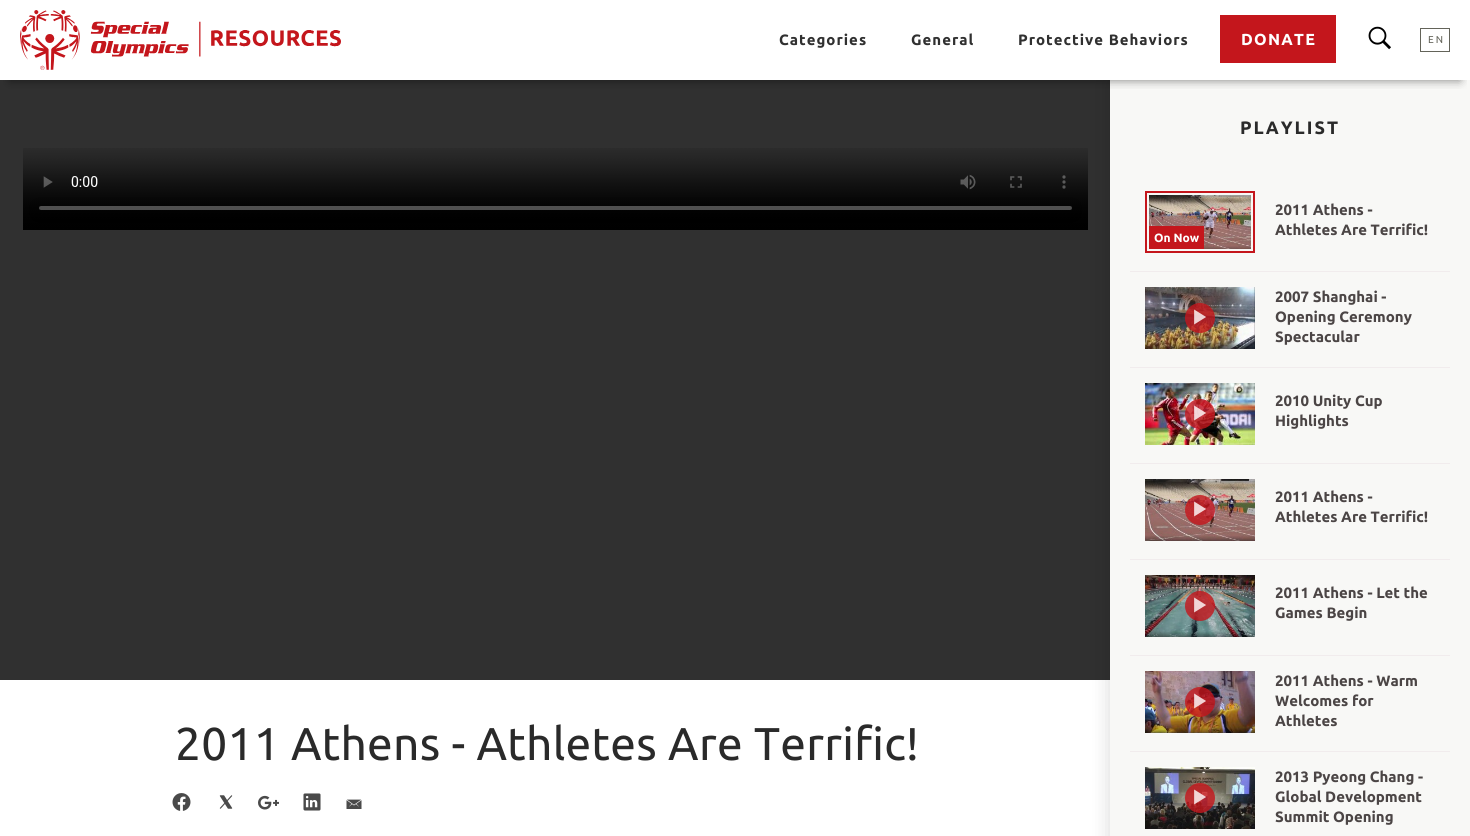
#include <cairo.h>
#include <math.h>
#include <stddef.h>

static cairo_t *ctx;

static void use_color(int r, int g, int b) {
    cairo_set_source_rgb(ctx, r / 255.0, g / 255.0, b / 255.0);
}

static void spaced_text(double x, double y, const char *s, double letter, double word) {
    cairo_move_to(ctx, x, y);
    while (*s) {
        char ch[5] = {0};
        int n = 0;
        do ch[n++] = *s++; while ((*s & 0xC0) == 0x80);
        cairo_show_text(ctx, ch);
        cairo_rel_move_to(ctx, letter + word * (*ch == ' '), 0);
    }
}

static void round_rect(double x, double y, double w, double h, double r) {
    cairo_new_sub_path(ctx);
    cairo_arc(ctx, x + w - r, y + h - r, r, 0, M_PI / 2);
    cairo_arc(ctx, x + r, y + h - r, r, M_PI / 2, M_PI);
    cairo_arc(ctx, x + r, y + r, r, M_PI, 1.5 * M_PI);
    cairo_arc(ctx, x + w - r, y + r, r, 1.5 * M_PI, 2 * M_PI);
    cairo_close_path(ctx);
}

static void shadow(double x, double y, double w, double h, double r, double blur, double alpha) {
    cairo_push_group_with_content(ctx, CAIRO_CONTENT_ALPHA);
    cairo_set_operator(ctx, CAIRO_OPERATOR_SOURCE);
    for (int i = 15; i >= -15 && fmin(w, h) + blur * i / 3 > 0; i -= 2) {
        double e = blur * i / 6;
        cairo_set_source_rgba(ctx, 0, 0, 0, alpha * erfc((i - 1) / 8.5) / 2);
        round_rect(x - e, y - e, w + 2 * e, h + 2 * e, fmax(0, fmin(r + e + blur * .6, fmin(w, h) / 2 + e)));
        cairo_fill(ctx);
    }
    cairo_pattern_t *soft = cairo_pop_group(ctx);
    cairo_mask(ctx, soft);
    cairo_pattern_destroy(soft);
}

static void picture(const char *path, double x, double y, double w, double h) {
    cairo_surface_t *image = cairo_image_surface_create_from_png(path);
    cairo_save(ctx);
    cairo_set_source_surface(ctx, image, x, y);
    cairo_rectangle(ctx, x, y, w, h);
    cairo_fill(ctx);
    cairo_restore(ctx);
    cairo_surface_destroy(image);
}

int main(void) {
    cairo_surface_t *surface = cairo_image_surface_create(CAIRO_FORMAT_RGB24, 1470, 836);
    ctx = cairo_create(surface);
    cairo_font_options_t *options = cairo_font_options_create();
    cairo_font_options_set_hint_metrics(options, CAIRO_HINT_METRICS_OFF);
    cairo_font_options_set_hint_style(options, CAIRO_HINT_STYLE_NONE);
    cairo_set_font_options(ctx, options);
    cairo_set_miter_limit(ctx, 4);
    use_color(255, 255, 255);
    cairo_paint(ctx);
    use_color(48, 48, 48);
    cairo_rectangle(ctx, 0, 80, 1110, 600);
    cairo_fill(ctx);
    picture("img3.png", 23, 148, 1065, 82);
    cairo_save(ctx);
    cairo_rectangle(ctx, 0, 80, 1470, 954);
    cairo_clip(ctx);
    use_color(0, 0, 0);
    shadow(1110, 81, 360, 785, 0, 10, 0.15);
    cairo_restore(ctx);
    use_color(248, 248, 246);
    cairo_rectangle(ctx, 1110, 80, 360, 756);
    cairo_fill(ctx);
    cairo_save(ctx);
    cairo_rectangle(ctx, 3, 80, 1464, 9);
    cairo_clip(ctx);
    use_color(0, 0, 0);
    shadow(10, 20, 1450, 60, 0, 5, 0.5);
    cairo_restore(ctx);
    picture("img1.png", 20, 10, 321, 60);
    cairo_select_font_face(ctx, "Ubuntu", CAIRO_FONT_SLANT_NORMAL, CAIRO_FONT_WEIGHT_BOLD);
    cairo_set_font_size(ctx, 15);
    use_color(48, 48, 48);
    spaced_text(779, 45, "Categories", 1, 0);
    spaced_text(911, 45, "General", 1, 0);
    spaced_text(1018, 45, "Protective Behaviors", 1, 0);
    use_color(196, 22, 28);
    cairo_rectangle(ctx, 1220, 15, 116, 48);
    cairo_fill(ctx);
    cairo_set_font_size(ctx, 16);
    use_color(255, 255, 255);
    spaced_text(1241, 45, "DONATE", 1.25, 0);
    picture("img2.png", 1368, 26, 23, 24);
    cairo_rectangle(ctx, 1420.5, 28.5, 29, 23);
    use_color(99, 99, 89);
    cairo_set_line_width(ctx, 1);
    cairo_stroke(ctx);
    cairo_select_font_face(ctx, "Ubuntu", CAIRO_FONT_SLANT_NORMAL, CAIRO_FONT_WEIGHT_NORMAL);
    cairo_set_font_size(ctx, 10);
    spaced_text(1428, 43, "EN", 2, 0);
    cairo_set_font_size(ctx, 46);
    use_color(42, 42, 42);
    spaced_text(175, 760, "2011 Athens - Athletes Are Terrific!", 0.3, 0);
    picture("img4.png", 172, 793, 19, 18);
    picture("img5.png", 219, 795, 14, 14);
    picture("img6.png", 258, 795, 21, 15);
    picture("img7.png", 303, 793, 18, 18);
    picture("img8.png", 346, 799, 16, 10);
    cairo_select_font_face(ctx, "Ubuntu", CAIRO_FONT_SLANT_NORMAL, CAIRO_FONT_WEIGHT_BOLD);
    cairo_set_font_size(ctx, 18);
    spaced_text(1240, 134, "PLAYLIST", 2, 0);
    use_color(241, 236, 237);
    cairo_rectangle(ctx, 1130, 271, 320, 1);
    cairo_fill(ctx);
    cairo_set_font_size(ctx, 15);
    use_color(75, 69, 69);
    cairo_move_to(ctx, 1275, 215);
    cairo_show_text(ctx, "2011 Athens -");
    cairo_move_to(ctx, 1275, 235);
    cairo_show_text(ctx, "Athletes Are Terrific!");
    cairo_rectangle(ctx, 1146, 192, 108, 60);
    use_color(196, 22, 28);
    cairo_set_line_width(ctx, 2);
    cairo_stroke(ctx);
    picture("img9.png", 1149, 195, 102, 54);
    cairo_rectangle(ctx, 1149, 226, 55, 23);
    cairo_fill(ctx);
    cairo_set_font_size(ctx, 12);
    use_color(255, 255, 255);
    cairo_move_to(ctx, 1154, 242);
    cairo_show_text(ctx, "On Now");
    use_color(241, 236, 237);
    cairo_rectangle(ctx, 1130, 367, 320, 1);
    cairo_fill(ctx);
    picture("img10.png", 1145, 287, 110, 62);
    cairo_set_source_rgba(ctx, 0.769, 0.086, 0.11, 0.8);
    cairo_arc(ctx, 1200, 318, 15, 0, 2 * M_PI);
    cairo_fill(ctx);
    picture("img11.png", 1194, 309, 12, 16);
    cairo_set_font_size(ctx, 15);
    use_color(75, 69, 69);
    cairo_move_to(ctx, 1275, 302);
    cairo_show_text(ctx, "2007 Shanghai -");
    cairo_move_to(ctx, 1275, 322);
    cairo_show_text(ctx, "Opening Ceremony");
    cairo_move_to(ctx, 1275, 342);
    cairo_show_text(ctx, "Spectacular");
    use_color(241, 236, 237);
    cairo_rectangle(ctx, 1130, 463, 320, 1);
    cairo_fill(ctx);
    picture("img12.png", 1145, 383, 110, 62);
    cairo_set_source_rgba(ctx, 0.769, 0.086, 0.11, 0.8);
    cairo_arc(ctx, 1200, 414, 15, 0, 2 * M_PI);
    cairo_fill(ctx);
    picture("img13.png", 1194, 405, 12, 16);
    use_color(75, 69, 69);
    cairo_move_to(ctx, 1275, 406);
    cairo_show_text(ctx, "2010 Unity Cup");
    cairo_move_to(ctx, 1275, 426);
    cairo_show_text(ctx, "Highlights");
    use_color(241, 236, 237);
    cairo_rectangle(ctx, 1130, 559, 320, 1);
    cairo_fill(ctx);
    picture("img14.png", 1145, 479, 110, 62);
    cairo_set_source_rgba(ctx, 0.769, 0.086, 0.11, 0.8);
    cairo_arc(ctx, 1200, 510, 15, 0, 2 * M_PI);
    cairo_fill(ctx);
    picture("img15.png", 1194, 501, 12, 16);
    use_color(75, 69, 69);
    cairo_move_to(ctx, 1275, 502);
    cairo_show_text(ctx, "2011 Athens -");
    cairo_move_to(ctx, 1275, 522);
    cairo_show_text(ctx, "Athletes Are Terrific!");
    use_color(241, 236, 237);
    cairo_rectangle(ctx, 1130, 655, 320, 1);
    cairo_fill(ctx);
    picture("img16.png", 1145, 575, 110, 62);
    cairo_set_source_rgba(ctx, 0.769, 0.086, 0.11, 0.8);
    cairo_arc(ctx, 1200, 606, 15, 0, 2 * M_PI);
    cairo_fill(ctx);
    picture("img17.png", 1194, 597, 12, 16);
    use_color(75, 69, 69);
    cairo_move_to(ctx, 1275, 598);
    cairo_show_text(ctx, "2011 Athens - Let the");
    cairo_move_to(ctx, 1275, 618);
    cairo_show_text(ctx, "Games Begin");
    use_color(241, 236, 237);
    cairo_rectangle(ctx, 1130, 751, 320, 1);
    cairo_fill(ctx);
    picture("img18.png", 1145, 671, 110, 62);
    cairo_set_source_rgba(ctx, 0.769, 0.086, 0.11, 0.8);
    cairo_arc(ctx, 1200, 702, 15, 0, 2 * M_PI);
    cairo_fill(ctx);
    picture("img19.png", 1194, 693, 12, 16);
    use_color(75, 69, 69);
    cairo_move_to(ctx, 1275, 686);
    cairo_show_text(ctx, "2011 Athens - Warm");
    cairo_move_to(ctx, 1275, 706);
    cairo_show_text(ctx, "Welcomes for");
    cairo_move_to(ctx, 1275, 726);
    cairo_show_text(ctx, "Athletes");
    picture("img20.png", 1145, 767, 110, 62);
    cairo_set_source_rgba(ctx, 0.769, 0.086, 0.11, 0.8);
    cairo_arc(ctx, 1200, 798, 15, 0, 2 * M_PI);
    cairo_fill(ctx);
    picture("img21.png", 1194, 789, 12, 16);
    use_color(75, 69, 69);
    cairo_move_to(ctx, 1275, 782);
    cairo_show_text(ctx, "2013 Pyeong Chang -");
    cairo_move_to(ctx, 1275, 802);
    cairo_show_text(ctx, "Global Development");
    cairo_move_to(ctx, 1275, 822);
    cairo_show_text(ctx, "Summit Opening");
    cairo_surface_write_to_png(surface, "result.png");
    cairo_font_options_destroy(options);
    cairo_destroy(ctx);
    cairo_surface_destroy(surface);
    return 0;
}
